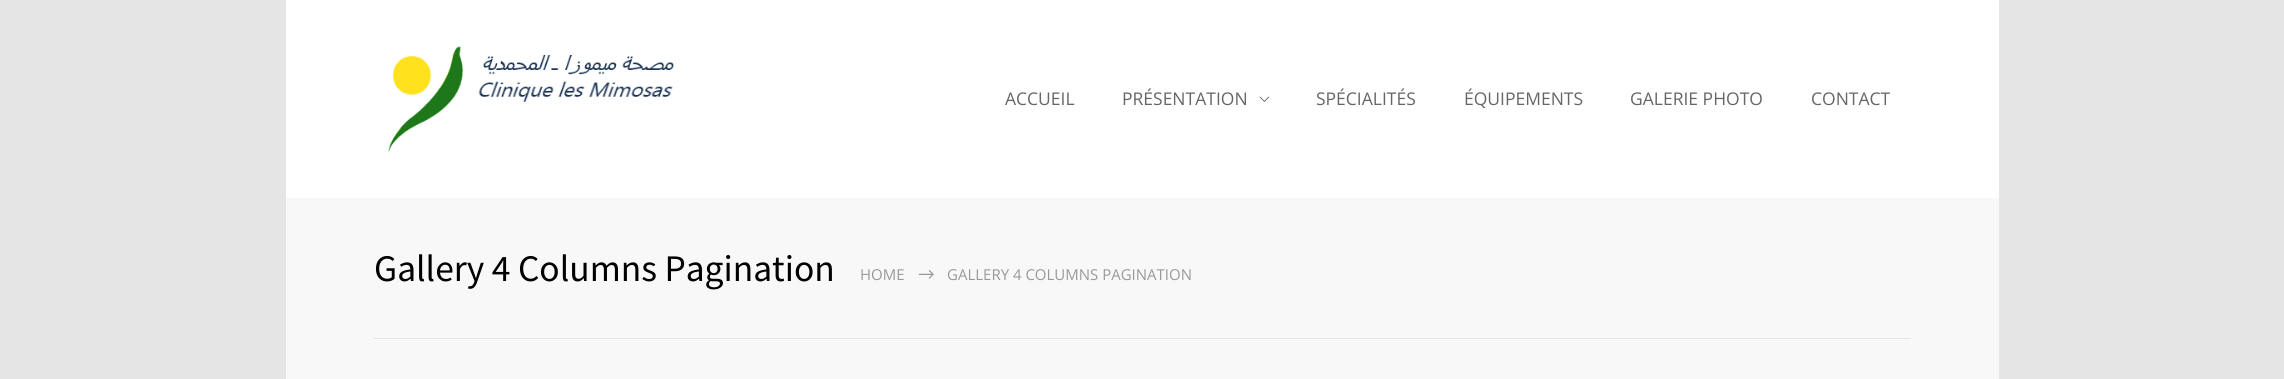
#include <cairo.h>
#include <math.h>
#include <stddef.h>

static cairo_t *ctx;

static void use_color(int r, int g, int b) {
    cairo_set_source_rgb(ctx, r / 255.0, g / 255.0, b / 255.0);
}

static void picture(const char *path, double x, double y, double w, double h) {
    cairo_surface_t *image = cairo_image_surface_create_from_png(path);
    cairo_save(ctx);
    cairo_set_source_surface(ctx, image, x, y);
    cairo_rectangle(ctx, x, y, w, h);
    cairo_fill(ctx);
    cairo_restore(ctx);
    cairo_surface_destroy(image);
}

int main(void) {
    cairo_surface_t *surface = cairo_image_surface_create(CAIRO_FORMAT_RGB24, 2284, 379);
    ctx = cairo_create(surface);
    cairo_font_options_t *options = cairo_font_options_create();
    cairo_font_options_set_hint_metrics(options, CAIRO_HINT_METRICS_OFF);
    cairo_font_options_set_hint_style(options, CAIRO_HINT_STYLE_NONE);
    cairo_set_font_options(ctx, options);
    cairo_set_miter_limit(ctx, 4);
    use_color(229, 229, 229);
    cairo_paint(ctx);
    use_color(248, 248, 248);
    cairo_rectangle(ctx, 286, 198, 1713, 181);
    cairo_fill(ctx);
    use_color(255, 255, 255);
    cairo_rectangle(ctx, 286, 0, 1713, 198);
    cairo_fill(ctx);
    picture("img1.png", 388, 46, 286, 106);
    cairo_select_font_face(ctx, "Open Sans", CAIRO_FONT_SLANT_NORMAL, CAIRO_FONT_WEIGHT_NORMAL);
    cairo_set_font_size(ctx, 17.5);
    use_color(102, 102, 102);
    cairo_move_to(ctx, 1005, 105);
    cairo_show_text(ctx, "ACCUEIL");
    cairo_move_to(ctx, 1122, 105);
    cairo_show_text(ctx, "PRÉSENTATION");
    picture("img2.png", 1259, 96, 11, 6);
    cairo_move_to(ctx, 1316, 105);
    cairo_show_text(ctx, "SPÉCIALITÉS");
    cairo_move_to(ctx, 1464, 105);
    cairo_show_text(ctx, "ÉQUIPEMENTS");
    cairo_move_to(ctx, 1630, 105);
    cairo_show_text(ctx, "GALERIE PHOTO");
    cairo_move_to(ctx, 1811, 105);
    cairo_show_text(ctx, "CONTACT");
    use_color(229, 229, 229);
    cairo_rectangle(ctx, 374, 338, 1537, 1);
    cairo_fill(ctx);
    cairo_select_font_face(ctx, "Source Sans Pro", CAIRO_FONT_SLANT_NORMAL, CAIRO_FONT_WEIGHT_NORMAL);
    cairo_set_font_size(ctx, 37.5);
    use_color(0, 0, 0);
    cairo_move_to(ctx, 374, 281);
    cairo_show_text(ctx, "Gallery 4 Columns Pagination");
    cairo_select_font_face(ctx, "Open Sans", CAIRO_FONT_SLANT_NORMAL, CAIRO_FONT_WEIGHT_NORMAL);
    cairo_set_font_size(ctx, 15);
    use_color(153, 153, 153);
    cairo_move_to(ctx, 860, 280);
    cairo_show_text(ctx, "HOME");
    picture("img3.png", 918, 270, 16, 9);
    cairo_move_to(ctx, 947, 280);
    cairo_show_text(ctx, "GALLERY 4 COLUMNS PAGINATION");
    cairo_surface_write_to_png(surface, "result.png");
    cairo_font_options_destroy(options);
    cairo_destroy(ctx);
    cairo_surface_destroy(surface);
    return 0;
}
